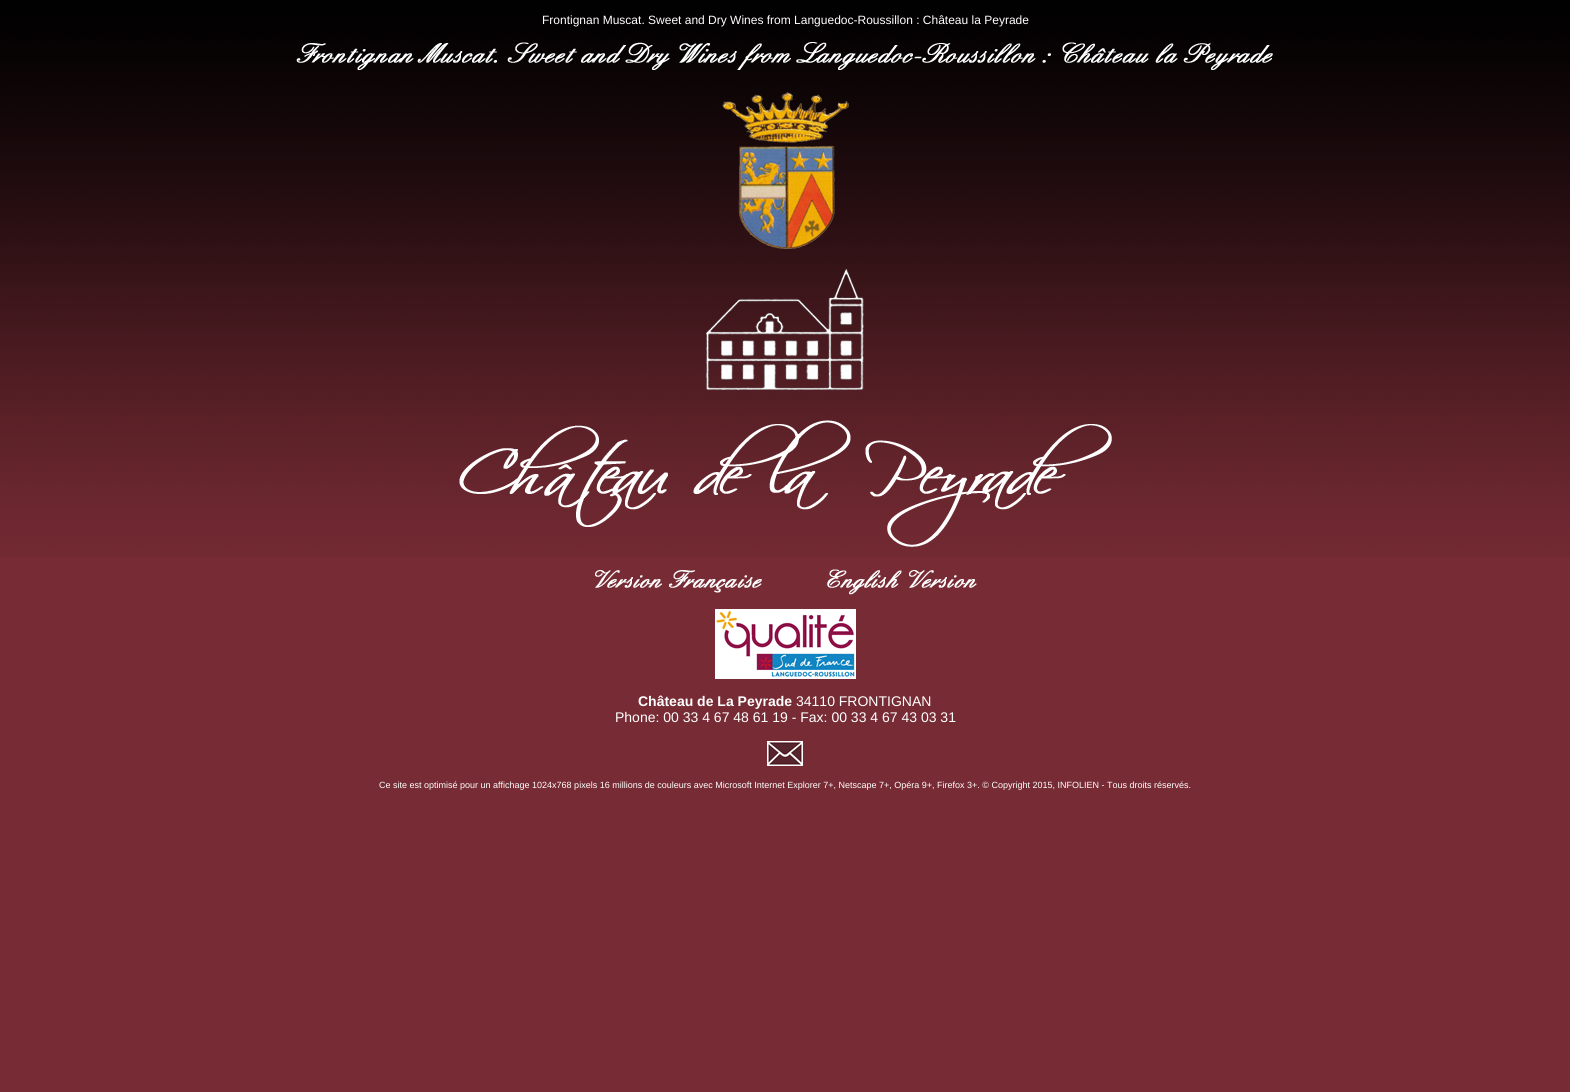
#include <cairo.h>
#include <math.h>
#include <stddef.h>

static cairo_t *ctx;

static void use_color(int r, int g, int b) {
    cairo_set_source_rgb(ctx, r / 255.0, g / 255.0, b / 255.0);
}

static void picture(const char *path, double x, double y, double w, double h) {
    cairo_surface_t *image = cairo_image_surface_create_from_png(path);
    cairo_save(ctx);
    cairo_set_source_surface(ctx, image, x, y);
    cairo_rectangle(ctx, x, y, w, h);
    cairo_fill(ctx);
    cairo_restore(ctx);
    cairo_surface_destroy(image);
}

int main(void) {
    cairo_surface_t *surface = cairo_image_surface_create(CAIRO_FORMAT_RGB24, 1570, 1092);
    ctx = cairo_create(surface);
    cairo_font_options_t *options = cairo_font_options_create();
    cairo_font_options_set_hint_metrics(options, CAIRO_HINT_METRICS_OFF);
    cairo_font_options_set_hint_style(options, CAIRO_HINT_STYLE_NONE);
    cairo_set_font_options(ctx, options);
    cairo_set_miter_limit(ctx, 4);
    use_color(119, 43, 52);
    cairo_paint(ctx);
    picture("img1.png", 0, 0, 1570, 557);
    cairo_select_font_face(ctx, "Liberation Sans", CAIRO_FONT_SLANT_NORMAL, CAIRO_FONT_WEIGHT_NORMAL);
    cairo_set_font_size(ctx, 12);
    use_color(255, 255, 255);
    cairo_move_to(ctx, 542, 24);
    cairo_show_text(ctx, "Frontignan Muscat. Sweet and Dry Wines from Languedoc-Roussillon : Château la Peyrade");
    picture("img2.png", 296, 42, 977, 28);
    picture("img3.png", 705, 92, 159, 298);
    picture("img4.png", 459, 420, 653, 127);
    picture("img5.png", 595, 570, 167, 23);
    picture("img6.png", 827, 569, 150, 26);
    picture("img7.png", 715, 609, 141, 70);
    cairo_select_font_face(ctx, "Liberation Sans", CAIRO_FONT_SLANT_NORMAL, CAIRO_FONT_WEIGHT_BOLD);
    cairo_set_font_size(ctx, 14);
    cairo_move_to(ctx, 638, 706);
    cairo_show_text(ctx, "Château de La Peyrade");
    cairo_select_font_face(ctx, "Liberation Sans", CAIRO_FONT_SLANT_NORMAL, CAIRO_FONT_WEIGHT_NORMAL);
    cairo_move_to(ctx, 796, 706);
    cairo_show_text(ctx, "34110 FRONTIGNAN");
    cairo_move_to(ctx, 615, 722);
    cairo_show_text(ctx, "Phone: 00 33 4 67 48 61 19 - Fax: 00 33 4 67 43 03 31");
    picture("img8.png", 767, 741, 36, 25);
    cairo_set_font_size(ctx, 9);
    cairo_move_to(ctx, 379, 788);
    cairo_show_text(ctx, "Ce site est optimisé pour un affichage 1024x768 pixels 16 millions de couleurs avec Microsoft Internet Explorer 7+, Netscape 7+, Opéra 9+, Firefox 3+. © Copyright 2015, INFOLIEN - Tous droits réservés.");
    cairo_surface_write_to_png(surface, "result.png");
    cairo_font_options_destroy(options);
    cairo_destroy(ctx);
    cairo_surface_destroy(surface);
    return 0;
}
